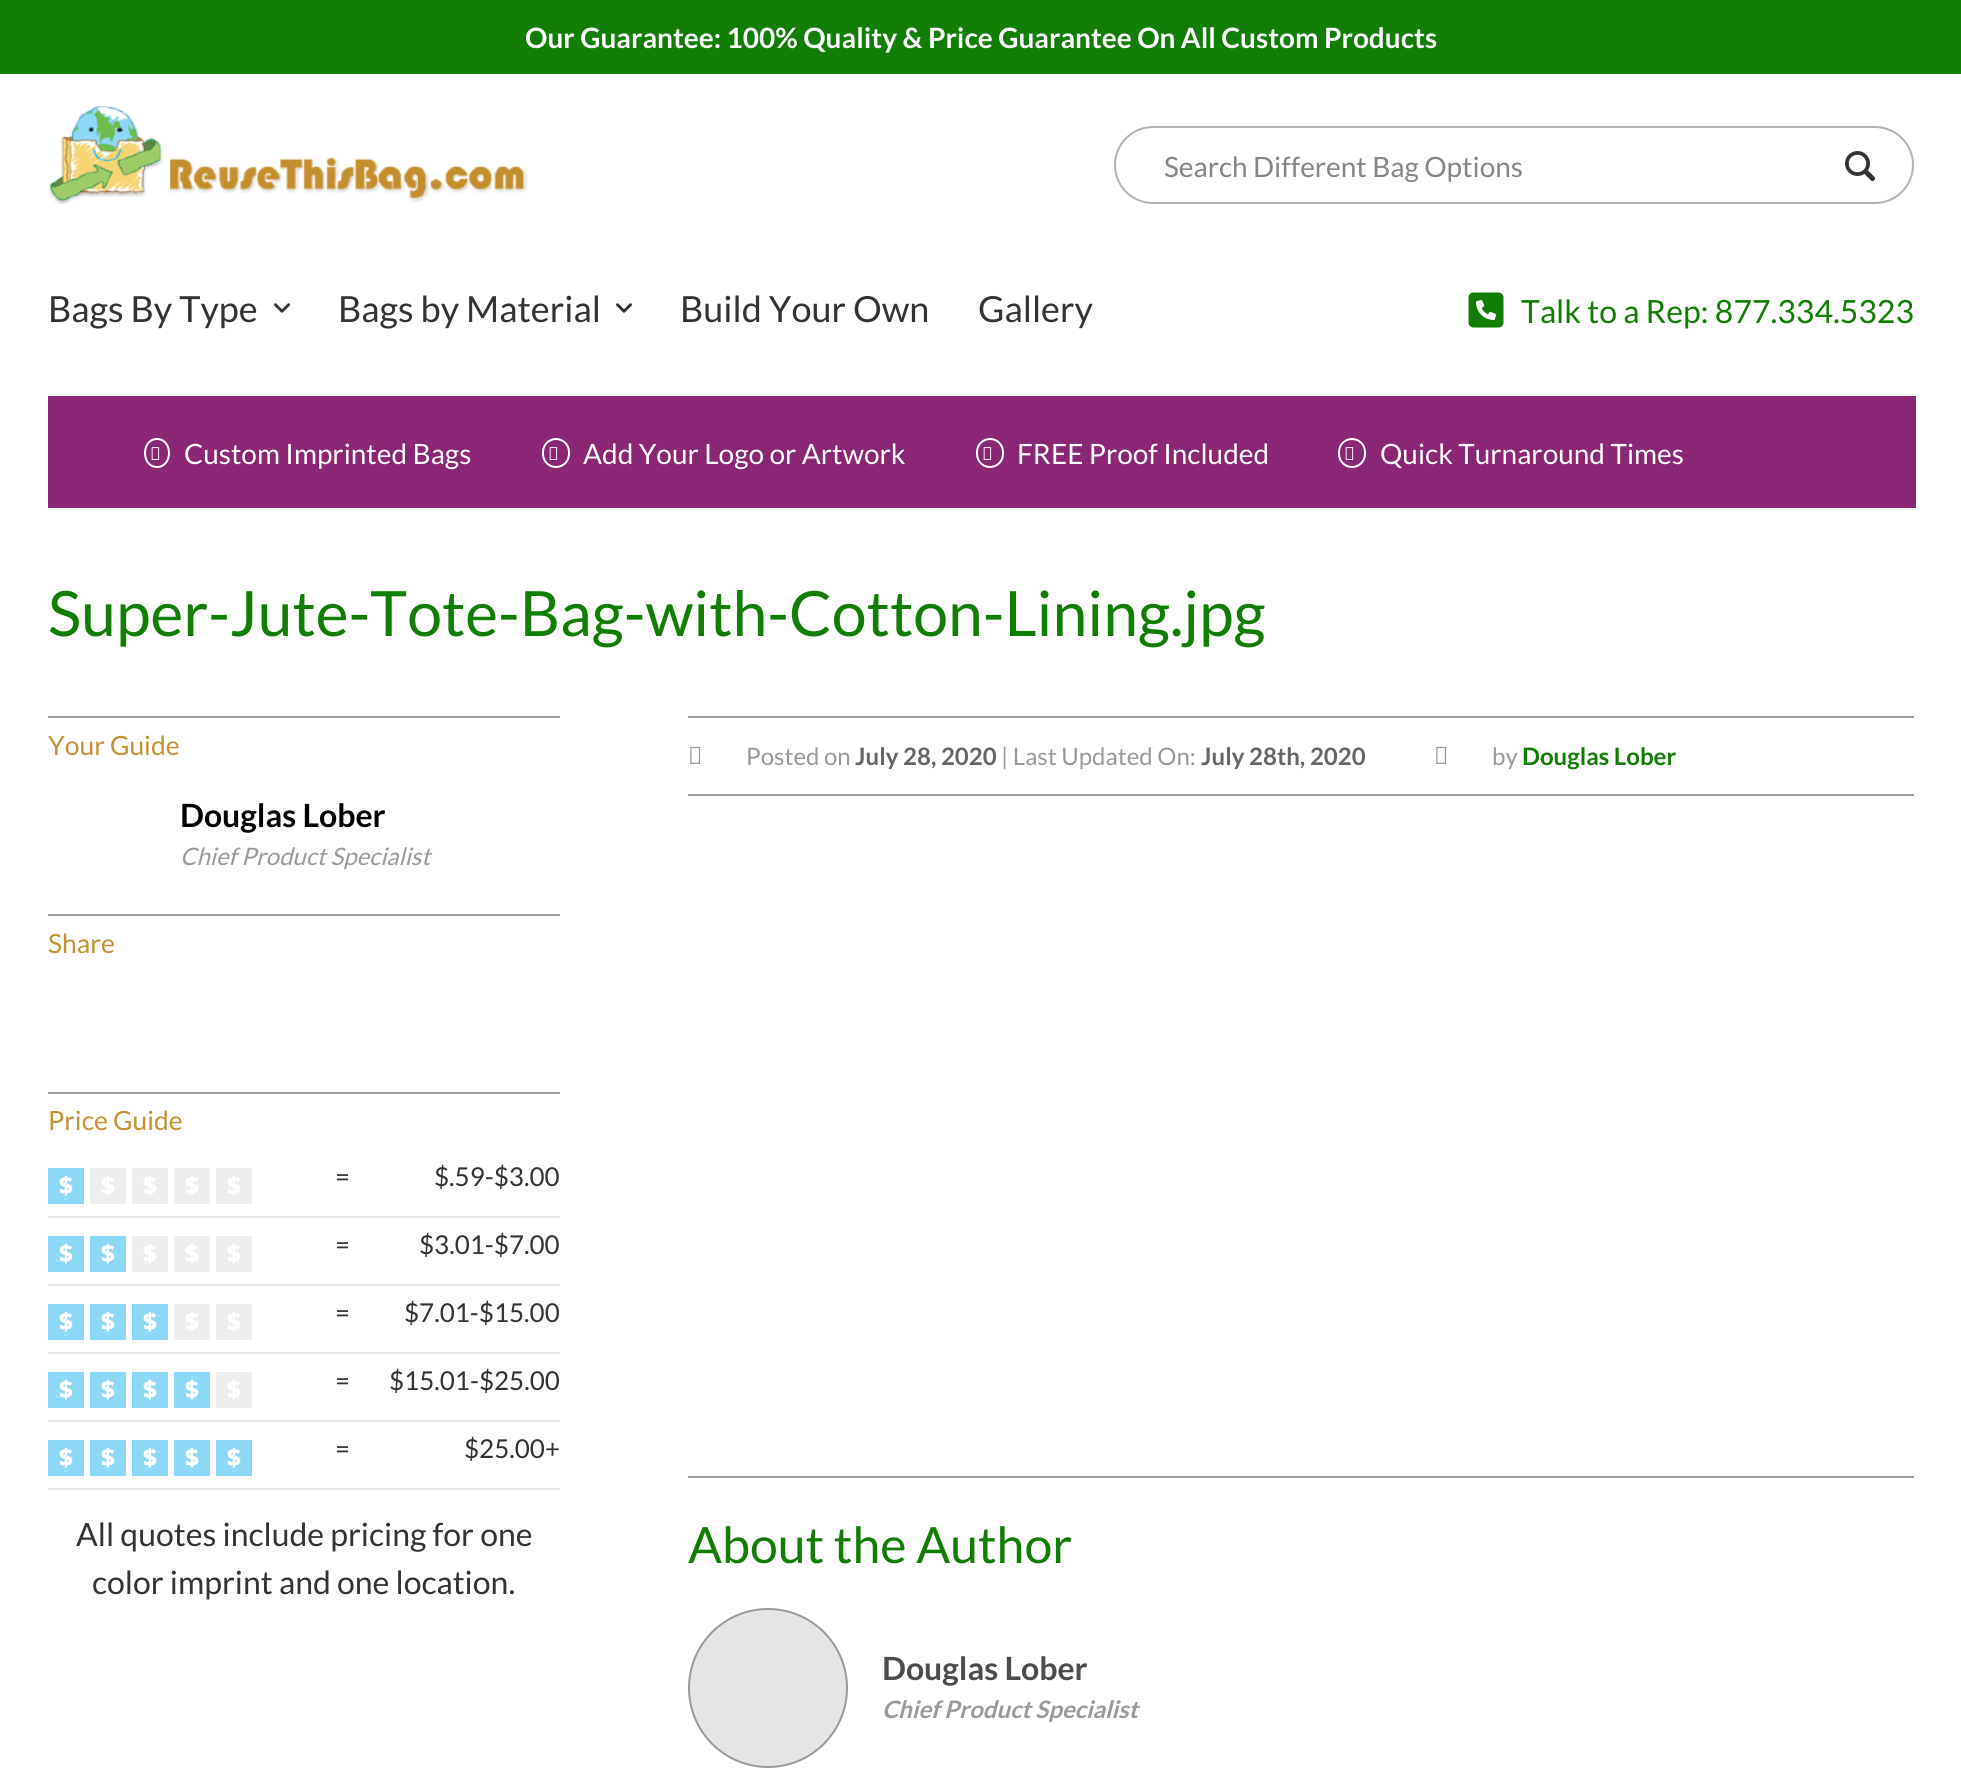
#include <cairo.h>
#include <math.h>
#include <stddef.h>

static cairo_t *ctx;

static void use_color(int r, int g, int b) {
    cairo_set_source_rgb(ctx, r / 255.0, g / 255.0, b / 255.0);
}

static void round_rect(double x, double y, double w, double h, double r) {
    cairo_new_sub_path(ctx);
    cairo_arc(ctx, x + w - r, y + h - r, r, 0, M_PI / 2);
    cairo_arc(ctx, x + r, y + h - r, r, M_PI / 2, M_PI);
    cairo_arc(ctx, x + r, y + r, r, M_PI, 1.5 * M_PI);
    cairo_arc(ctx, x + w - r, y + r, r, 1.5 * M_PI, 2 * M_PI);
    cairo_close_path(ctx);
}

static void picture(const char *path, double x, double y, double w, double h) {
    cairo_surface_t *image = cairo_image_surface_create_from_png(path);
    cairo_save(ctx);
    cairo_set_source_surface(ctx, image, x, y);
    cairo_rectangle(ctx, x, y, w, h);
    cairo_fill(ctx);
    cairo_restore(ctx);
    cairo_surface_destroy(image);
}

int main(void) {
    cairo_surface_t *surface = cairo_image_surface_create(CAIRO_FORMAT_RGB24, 1961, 1768);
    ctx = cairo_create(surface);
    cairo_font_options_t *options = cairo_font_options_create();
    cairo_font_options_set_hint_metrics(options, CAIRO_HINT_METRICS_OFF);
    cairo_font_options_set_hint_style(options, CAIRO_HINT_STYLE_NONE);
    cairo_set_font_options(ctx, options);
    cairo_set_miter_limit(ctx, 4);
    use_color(255, 255, 255);
    cairo_paint(ctx);
    use_color(17, 125, 3);
    cairo_rectangle(ctx, 0, 0, 1961, 74);
    cairo_fill(ctx);
    cairo_select_font_face(ctx, "Lato", CAIRO_FONT_SLANT_NORMAL, CAIRO_FONT_WEIGHT_BOLD);
    cairo_set_font_size(ctx, 28);
    use_color(255, 255, 255);
    cairo_move_to(ctx, 525, 48);
    cairo_show_text(ctx, "Our Guarantee: 100% Quality & Price Guarantee On All Custom Products");
    picture("img1.png", 48, 106, 480, 98);
    round_rect(1115, 127, 798, 76, 38);
    use_color(178, 178, 178);
    cairo_stroke(ctx);
    cairo_select_font_face(ctx, "Lato", CAIRO_FONT_SLANT_NORMAL, CAIRO_FONT_WEIGHT_NORMAL);
    use_color(133, 133, 133);
    cairo_move_to(ctx, 1164, 177);
    cairo_show_text(ctx, "Search Different Bag Options");
    picture("img2.png", 1845, 151, 30, 30);
    cairo_set_font_size(ctx, 36);
    use_color(51, 51, 51);
    cairo_move_to(ctx, 48, 322);
    cairo_show_text(ctx, "Bags By Type");
    picture("img3.png", 274, 303, 16, 10);
    cairo_move_to(ctx, 338, 322);
    cairo_show_text(ctx, "Bags by Material");
    picture("img3.png", 616, 303, 16, 10);
    cairo_move_to(ctx, 680, 322);
    cairo_show_text(ctx, "Build Your Own");
    cairo_move_to(ctx, 978, 322);
    cairo_show_text(ctx, "Gallery");
    picture("img4.png", 1468, 292, 36, 36);
    cairo_set_font_size(ctx, 32);
    use_color(17, 125, 3);
    cairo_move_to(ctx, 1521, 323);
    cairo_show_text(ctx, "Talk to a Rep: 877.334.5323");
    use_color(138, 38, 115);
    cairo_rectangle(ctx, 48, 396, 1868, 112);
    cairo_fill(ctx);
    cairo_new_path(ctx);
    cairo_move_to(ctx, 157, 439);
    cairo_curve_to(ctx, 173, 439, 173, 467, 157, 467);
    cairo_curve_to(ctx, 141, 467, 141, 439, 157, 439);
    cairo_close_path(ctx);
    use_color(255, 255, 255);
    cairo_stroke(ctx);
    picture("img5.png", 151, 447, 9, 13);
    cairo_set_font_size(ctx, 28);
    cairo_move_to(ctx, 184, 464);
    cairo_show_text(ctx, "Custom Imprinted Bags");
    round_rect(543, 439, 26, 28, 13);
    cairo_stroke(ctx);
    picture("img5.png", 549, 447, 9, 13);
    cairo_move_to(ctx, 583, 464);
    cairo_show_text(ctx, "Add Your Logo or Artwork");
    round_rect(977, 439, 26, 28, 13);
    cairo_stroke(ctx);
    picture("img5.png", 983, 447, 9, 13);
    cairo_move_to(ctx, 1017, 464);
    cairo_show_text(ctx, "FREE Proof Included");
    round_rect(1339, 439, 26, 28, 13);
    cairo_stroke(ctx);
    picture("img5.png", 1345, 447, 9, 13);
    cairo_move_to(ctx, 1380, 464);
    cairo_show_text(ctx, "Quick Turnaround Times");
    cairo_set_font_size(ctx, 62.5);
    use_color(17, 125, 3);
    cairo_move_to(ctx, 48, 636);
    cairo_show_text(ctx, "Super-Jute-Tote-Bag-with-Cotton-Lining.jpg");
    use_color(153, 153, 153);
    cairo_rectangle(ctx, 48, 716, 512, 2);
    cairo_fill(ctx);
    cairo_set_font_size(ctx, 26.5);
    use_color(197, 145, 50);
    cairo_move_to(ctx, 48, 755);
    cairo_show_text(ctx, "Your Guide");
    cairo_select_font_face(ctx, "Lato", CAIRO_FONT_SLANT_NORMAL, CAIRO_FONT_WEIGHT_BOLD);
    cairo_set_font_size(ctx, 32);
    use_color(0, 0, 0);
    cairo_move_to(ctx, 180, 827);
    cairo_show_text(ctx, "Douglas Lober");
    cairo_select_font_face(ctx, "Lato", CAIRO_FONT_SLANT_ITALIC, CAIRO_FONT_WEIGHT_NORMAL);
    cairo_set_font_size(ctx, 24);
    use_color(153, 153, 153);
    cairo_move_to(ctx, 180, 865);
    cairo_show_text(ctx, "Chief Product Specialist");
    cairo_rectangle(ctx, 48, 914, 512, 2);
    cairo_fill(ctx);
    cairo_select_font_face(ctx, "Lato", CAIRO_FONT_SLANT_NORMAL, CAIRO_FONT_WEIGHT_NORMAL);
    cairo_set_font_size(ctx, 26.5);
    use_color(197, 145, 50);
    cairo_move_to(ctx, 48, 953);
    cairo_show_text(ctx, "Share");
    use_color(153, 153, 153);
    cairo_rectangle(ctx, 48, 1092, 512, 2);
    cairo_fill(ctx);
    use_color(197, 145, 50);
    cairo_move_to(ctx, 48, 1130);
    cairo_show_text(ctx, "Price Guide");
    use_color(230, 230, 230);
    cairo_rectangle(ctx, 48, 1216, 512, 2);
    cairo_fill(ctx);
    use_color(141, 215, 247);
    cairo_rectangle(ctx, 48, 1168, 36, 36);
    cairo_fill(ctx);
    cairo_select_font_face(ctx, "Noto Sans Black", CAIRO_FONT_SLANT_NORMAL, CAIRO_FONT_WEIGHT_NORMAL);
    cairo_set_font_size(ctx, 24);
    use_color(255, 255, 255);
    cairo_move_to(ctx, 59, 1194);
    cairo_show_text(ctx, "$");
    use_color(238, 238, 238);
    cairo_rectangle(ctx, 90, 1168, 36, 36);
    cairo_fill(ctx);
    use_color(255, 255, 255);
    cairo_move_to(ctx, 101, 1194);
    cairo_show_text(ctx, "$");
    use_color(238, 238, 238);
    cairo_rectangle(ctx, 132, 1168, 36, 36);
    cairo_fill(ctx);
    use_color(255, 255, 255);
    cairo_move_to(ctx, 143, 1194);
    cairo_show_text(ctx, "$");
    use_color(238, 238, 238);
    cairo_rectangle(ctx, 174, 1168, 36, 36);
    cairo_fill(ctx);
    use_color(255, 255, 255);
    cairo_move_to(ctx, 185, 1194);
    cairo_show_text(ctx, "$");
    use_color(238, 238, 238);
    cairo_rectangle(ctx, 216, 1168, 36, 36);
    cairo_fill(ctx);
    use_color(255, 255, 255);
    cairo_move_to(ctx, 227, 1194);
    cairo_show_text(ctx, "$");
    cairo_select_font_face(ctx, "Lato", CAIRO_FONT_SLANT_NORMAL, CAIRO_FONT_WEIGHT_NORMAL);
    cairo_set_font_size(ctx, 26);
    use_color(51, 51, 51);
    cairo_move_to(ctx, 335, 1186);
    cairo_show_text(ctx, "=");
    cairo_move_to(ctx, 434, 1186);
    cairo_show_text(ctx, "$.59-$3.00");
    use_color(230, 230, 230);
    cairo_rectangle(ctx, 48, 1284, 512, 2);
    cairo_fill(ctx);
    use_color(141, 215, 247);
    cairo_rectangle(ctx, 48, 1236, 36, 36);
    cairo_fill(ctx);
    cairo_select_font_face(ctx, "Noto Sans Black", CAIRO_FONT_SLANT_NORMAL, CAIRO_FONT_WEIGHT_NORMAL);
    cairo_set_font_size(ctx, 24);
    use_color(255, 255, 255);
    cairo_move_to(ctx, 59, 1262);
    cairo_show_text(ctx, "$");
    use_color(141, 215, 247);
    cairo_rectangle(ctx, 90, 1236, 36, 36);
    cairo_fill(ctx);
    use_color(255, 255, 255);
    cairo_move_to(ctx, 101, 1262);
    cairo_show_text(ctx, "$");
    use_color(238, 238, 238);
    cairo_rectangle(ctx, 132, 1236, 36, 36);
    cairo_fill(ctx);
    use_color(255, 255, 255);
    cairo_move_to(ctx, 143, 1262);
    cairo_show_text(ctx, "$");
    use_color(238, 238, 238);
    cairo_rectangle(ctx, 174, 1236, 36, 36);
    cairo_fill(ctx);
    use_color(255, 255, 255);
    cairo_move_to(ctx, 185, 1262);
    cairo_show_text(ctx, "$");
    use_color(238, 238, 238);
    cairo_rectangle(ctx, 216, 1236, 36, 36);
    cairo_fill(ctx);
    use_color(255, 255, 255);
    cairo_move_to(ctx, 227, 1262);
    cairo_show_text(ctx, "$");
    cairo_select_font_face(ctx, "Lato", CAIRO_FONT_SLANT_NORMAL, CAIRO_FONT_WEIGHT_NORMAL);
    cairo_set_font_size(ctx, 26);
    use_color(51, 51, 51);
    cairo_move_to(ctx, 335, 1254);
    cairo_show_text(ctx, "=");
    cairo_move_to(ctx, 419, 1254);
    cairo_show_text(ctx, "$3.01-$7.00");
    use_color(230, 230, 230);
    cairo_rectangle(ctx, 48, 1352, 512, 2);
    cairo_fill(ctx);
    use_color(141, 215, 247);
    cairo_rectangle(ctx, 48, 1304, 36, 36);
    cairo_fill(ctx);
    cairo_select_font_face(ctx, "Noto Sans Black", CAIRO_FONT_SLANT_NORMAL, CAIRO_FONT_WEIGHT_NORMAL);
    cairo_set_font_size(ctx, 24);
    use_color(255, 255, 255);
    cairo_move_to(ctx, 59, 1330);
    cairo_show_text(ctx, "$");
    use_color(141, 215, 247);
    cairo_rectangle(ctx, 90, 1304, 36, 36);
    cairo_fill(ctx);
    use_color(255, 255, 255);
    cairo_move_to(ctx, 101, 1330);
    cairo_show_text(ctx, "$");
    use_color(141, 215, 247);
    cairo_rectangle(ctx, 132, 1304, 36, 36);
    cairo_fill(ctx);
    use_color(255, 255, 255);
    cairo_move_to(ctx, 143, 1330);
    cairo_show_text(ctx, "$");
    use_color(238, 238, 238);
    cairo_rectangle(ctx, 174, 1304, 36, 36);
    cairo_fill(ctx);
    use_color(255, 255, 255);
    cairo_move_to(ctx, 185, 1330);
    cairo_show_text(ctx, "$");
    use_color(238, 238, 238);
    cairo_rectangle(ctx, 216, 1304, 36, 36);
    cairo_fill(ctx);
    use_color(255, 255, 255);
    cairo_move_to(ctx, 227, 1330);
    cairo_show_text(ctx, "$");
    cairo_select_font_face(ctx, "Lato", CAIRO_FONT_SLANT_NORMAL, CAIRO_FONT_WEIGHT_NORMAL);
    cairo_set_font_size(ctx, 26);
    use_color(51, 51, 51);
    cairo_move_to(ctx, 335, 1322);
    cairo_show_text(ctx, "=");
    cairo_move_to(ctx, 404, 1322);
    cairo_show_text(ctx, "$7.01-$15.00");
    use_color(230, 230, 230);
    cairo_rectangle(ctx, 48, 1420, 512, 2);
    cairo_fill(ctx);
    use_color(141, 215, 247);
    cairo_rectangle(ctx, 48, 1372, 36, 36);
    cairo_fill(ctx);
    cairo_select_font_face(ctx, "Noto Sans Black", CAIRO_FONT_SLANT_NORMAL, CAIRO_FONT_WEIGHT_NORMAL);
    cairo_set_font_size(ctx, 24);
    use_color(255, 255, 255);
    cairo_move_to(ctx, 59, 1398);
    cairo_show_text(ctx, "$");
    use_color(141, 215, 247);
    cairo_rectangle(ctx, 90, 1372, 36, 36);
    cairo_fill(ctx);
    use_color(255, 255, 255);
    cairo_move_to(ctx, 101, 1398);
    cairo_show_text(ctx, "$");
    use_color(141, 215, 247);
    cairo_rectangle(ctx, 132, 1372, 36, 36);
    cairo_fill(ctx);
    use_color(255, 255, 255);
    cairo_move_to(ctx, 143, 1398);
    cairo_show_text(ctx, "$");
    use_color(141, 215, 247);
    cairo_rectangle(ctx, 174, 1372, 36, 36);
    cairo_fill(ctx);
    use_color(255, 255, 255);
    cairo_move_to(ctx, 185, 1398);
    cairo_show_text(ctx, "$");
    use_color(238, 238, 238);
    cairo_rectangle(ctx, 216, 1372, 36, 36);
    cairo_fill(ctx);
    use_color(255, 255, 255);
    cairo_move_to(ctx, 227, 1398);
    cairo_show_text(ctx, "$");
    cairo_select_font_face(ctx, "Lato", CAIRO_FONT_SLANT_NORMAL, CAIRO_FONT_WEIGHT_NORMAL);
    cairo_set_font_size(ctx, 26);
    use_color(51, 51, 51);
    cairo_move_to(ctx, 335, 1390);
    cairo_show_text(ctx, "=");
    cairo_move_to(ctx, 389, 1390);
    cairo_show_text(ctx, "$15.01-$25.00");
    use_color(230, 230, 230);
    cairo_rectangle(ctx, 48, 1488, 512, 2);
    cairo_fill(ctx);
    use_color(141, 215, 247);
    cairo_rectangle(ctx, 48, 1440, 36, 36);
    cairo_fill(ctx);
    cairo_select_font_face(ctx, "Noto Sans Black", CAIRO_FONT_SLANT_NORMAL, CAIRO_FONT_WEIGHT_NORMAL);
    cairo_set_font_size(ctx, 24);
    use_color(255, 255, 255);
    cairo_move_to(ctx, 59, 1466);
    cairo_show_text(ctx, "$");
    use_color(141, 215, 247);
    cairo_rectangle(ctx, 90, 1440, 36, 36);
    cairo_fill(ctx);
    use_color(255, 255, 255);
    cairo_move_to(ctx, 101, 1466);
    cairo_show_text(ctx, "$");
    use_color(141, 215, 247);
    cairo_rectangle(ctx, 132, 1440, 36, 36);
    cairo_fill(ctx);
    use_color(255, 255, 255);
    cairo_move_to(ctx, 143, 1466);
    cairo_show_text(ctx, "$");
    use_color(141, 215, 247);
    cairo_rectangle(ctx, 174, 1440, 36, 36);
    cairo_fill(ctx);
    use_color(255, 255, 255);
    cairo_move_to(ctx, 185, 1466);
    cairo_show_text(ctx, "$");
    use_color(141, 215, 247);
    cairo_rectangle(ctx, 216, 1440, 36, 36);
    cairo_fill(ctx);
    use_color(255, 255, 255);
    cairo_move_to(ctx, 227, 1466);
    cairo_show_text(ctx, "$");
    cairo_select_font_face(ctx, "Lato", CAIRO_FONT_SLANT_NORMAL, CAIRO_FONT_WEIGHT_NORMAL);
    cairo_set_font_size(ctx, 26);
    use_color(51, 51, 51);
    cairo_move_to(ctx, 335, 1458);
    cairo_show_text(ctx, "=");
    cairo_move_to(ctx, 464, 1458);
    cairo_show_text(ctx, "$25.00+");
    cairo_set_font_size(ctx, 32);
    cairo_move_to(ctx, 76, 1546);
    cairo_show_text(ctx, "All quotes include pricing for one");
    cairo_move_to(ctx, 92, 1594);
    cairo_show_text(ctx, "color imprint and one location.");
    use_color(153, 153, 153);
    cairo_rectangle(ctx, 688, 716, 1226, 2);
    cairo_fill(ctx);
    cairo_rectangle(ctx, 688, 794, 1226, 2);
    cairo_fill(ctx);
    picture("img6.png", 690, 746, 11, 18);
    cairo_set_font_size(ctx, 24);
    cairo_move_to(ctx, 746, 765);
    cairo_show_text(ctx, "Posted on");
    cairo_select_font_face(ctx, "Lato", CAIRO_FONT_SLANT_NORMAL, CAIRO_FONT_WEIGHT_BOLD);
    use_color(102, 102, 102);
    cairo_move_to(ctx, 855, 765);
    cairo_show_text(ctx, "July 28, 2020");
    cairo_select_font_face(ctx, "Lato", CAIRO_FONT_SLANT_NORMAL, CAIRO_FONT_WEIGHT_NORMAL);
    use_color(153, 153, 153);
    cairo_move_to(ctx, 1001, 765);
    cairo_show_text(ctx, "| Last Updated On:");
    cairo_select_font_face(ctx, "Lato", CAIRO_FONT_SLANT_NORMAL, CAIRO_FONT_WEIGHT_BOLD);
    use_color(102, 102, 102);
    cairo_move_to(ctx, 1201, 765);
    cairo_show_text(ctx, "July 28th, 2020");
    picture("img6.png", 1436, 746, 11, 18);
    cairo_select_font_face(ctx, "Lato", CAIRO_FONT_SLANT_NORMAL, CAIRO_FONT_WEIGHT_NORMAL);
    use_color(153, 153, 153);
    cairo_move_to(ctx, 1492, 765);
    cairo_show_text(ctx, "by");
    cairo_select_font_face(ctx, "Lato", CAIRO_FONT_SLANT_NORMAL, CAIRO_FONT_WEIGHT_BOLD);
    use_color(17, 125, 3);
    cairo_move_to(ctx, 1522, 765);
    cairo_show_text(ctx, "Douglas Lober");
    use_color(153, 153, 153);
    cairo_rectangle(ctx, 688, 1476, 1226, 2);
    cairo_fill(ctx);
    cairo_select_font_face(ctx, "Lato", CAIRO_FONT_SLANT_NORMAL, CAIRO_FONT_WEIGHT_NORMAL);
    cairo_set_font_size(ctx, 50);
    use_color(17, 125, 3);
    cairo_move_to(ctx, 688, 1563);
    cairo_show_text(ctx, "About the Author");
    use_color(229, 229, 229);
    cairo_new_path(ctx);
    cairo_arc(ctx, 768, 1688, 79, 0, 2 * M_PI);
    cairo_fill_preserve(ctx);
    use_color(153, 153, 153);
    cairo_stroke(ctx);
    cairo_select_font_face(ctx, "Lato", CAIRO_FONT_SLANT_NORMAL, CAIRO_FONT_WEIGHT_BOLD);
    cairo_set_font_size(ctx, 32);
    use_color(76, 76, 76);
    cairo_move_to(ctx, 882, 1680);
    cairo_show_text(ctx, "Douglas Lober");
    cairo_select_font_face(ctx, "Lato", CAIRO_FONT_SLANT_ITALIC, CAIRO_FONT_WEIGHT_BOLD);
    cairo_set_font_size(ctx, 24);
    use_color(153, 153, 153);
    cairo_move_to(ctx, 882, 1718);
    cairo_show_text(ctx, "Chief Product Specialist");
    cairo_surface_write_to_png(surface, "result.png");
    cairo_font_options_destroy(options);
    cairo_destroy(ctx);
    cairo_surface_destroy(surface);
    return 0;
}
